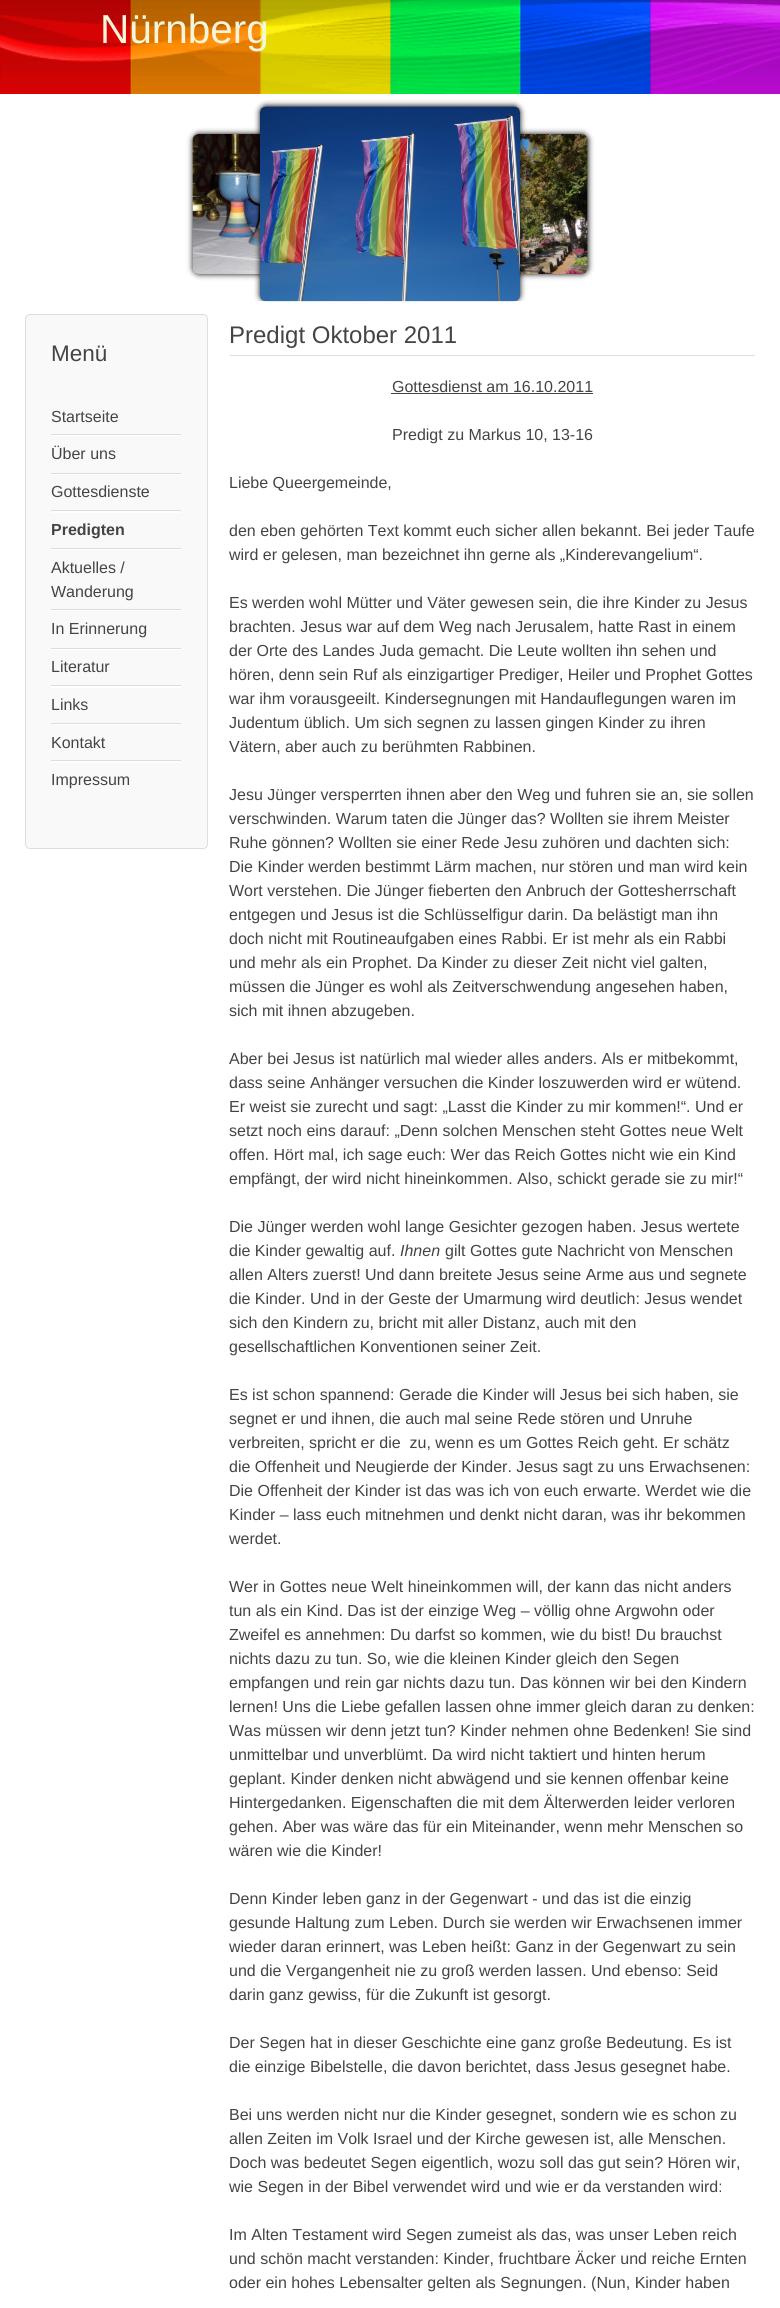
#include <cairo.h>
#include <math.h>
#include <stddef.h>

static cairo_t *ctx;

static void use_color(int r, int g, int b) {
    cairo_set_source_rgb(ctx, r / 255.0, g / 255.0, b / 255.0);
}

static void round_rect(double x, double y, double w, double h, double r) {
    cairo_new_sub_path(ctx);
    cairo_arc(ctx, x + w - r, y + h - r, r, 0, M_PI / 2);
    cairo_arc(ctx, x + r, y + h - r, r, M_PI / 2, M_PI);
    cairo_arc(ctx, x + r, y + r, r, M_PI, 1.5 * M_PI);
    cairo_arc(ctx, x + w - r, y + r, r, 1.5 * M_PI, 2 * M_PI);
    cairo_close_path(ctx);
}

static void shadow(double x, double y, double w, double h, double r, double blur, double alpha) {
    cairo_push_group_with_content(ctx, CAIRO_CONTENT_ALPHA);
    cairo_set_operator(ctx, CAIRO_OPERATOR_SOURCE);
    for (int i = 15; i >= -15 && fmin(w, h) + blur * i / 3 > 0; i -= 2) {
        double e = blur * i / 6;
        cairo_set_source_rgba(ctx, 0, 0, 0, alpha * erfc((i - 1) / 8.5) / 2);
        round_rect(x - e, y - e, w + 2 * e, h + 2 * e, fmax(0, fmin(r + e + blur * .6, fmin(w, h) / 2 + e)));
        cairo_fill(ctx);
    }
    cairo_pattern_t *soft = cairo_pop_group(ctx);
    cairo_mask(ctx, soft);
    cairo_pattern_destroy(soft);
}

static void picture(const char *path, double x, double y, double w, double h) {
    cairo_surface_t *image = cairo_image_surface_create_from_png(path);
    cairo_save(ctx);
    cairo_set_source_surface(ctx, image, x, y);
    cairo_rectangle(ctx, x, y, w, h);
    cairo_fill(ctx);
    cairo_restore(ctx);
    cairo_surface_destroy(image);
}

int main(void) {
    cairo_surface_t *surface = cairo_image_surface_create(CAIRO_FORMAT_RGB24, 780, 2308);
    ctx = cairo_create(surface);
    cairo_font_options_t *options = cairo_font_options_create();
    cairo_font_options_set_hint_metrics(options, CAIRO_HINT_METRICS_OFF);
    cairo_font_options_set_hint_style(options, CAIRO_HINT_STYLE_NONE);
    cairo_set_font_options(ctx, options);
    cairo_set_miter_limit(ctx, 4);
    use_color(255, 255, 255);
    cairo_paint(ctx);
    picture("img1.png", 0, 0, 780, 94);
    cairo_select_font_face(ctx, "Liberation Sans", CAIRO_FONT_SLANT_NORMAL, CAIRO_FONT_WEIGHT_NORMAL);
    cairo_set_font_size(ctx, 40.5);
    use_color(245, 245, 220);
    cairo_move_to(ctx, 100, 43);
    cairo_show_text(ctx, "Nürnberg");
    use_color(0, 0, 0);
    shadow(193, 134, 187, 140, 6, 3, 1);
    picture("img3.png", 192, 134, 68, 140);
    shadow(400, 134, 188, 140, 6, 3, 1);
    picture("img4.png", 520, 134, 68, 140);
    cairo_save(ctx);
    cairo_rectangle(ctx, 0, 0, 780, 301);
    cairo_clip(ctx);
    shadow(260, 106, 260, 195, 6, 3, 1);
    cairo_restore(ctx);
    picture("img2.png", 260, 106, 260, 196);
    use_color(249, 249, 249);
    round_rect(25.5, 314.5, 182, 534, 4.5);
    cairo_fill_preserve(ctx);
    use_color(221, 221, 221);
    cairo_set_line_width(ctx, 1);
    cairo_stroke(ctx);
    cairo_set_font_size(ctx, 22.5);
    use_color(68, 68, 68);
    cairo_move_to(ctx, 51, 361);
    cairo_show_text(ctx, "Menü");
    use_color(255, 255, 255);
    cairo_new_path(ctx);
    cairo_move_to(ctx, 51, 399);
    cairo_line_to(ctx, 51, 436);
    cairo_line_to(ctx, 181, 436);
    cairo_line_to(ctx, 181, 435);
    cairo_line_to(ctx, 51, 435);
    cairo_close_path(ctx);
    cairo_fill(ctx);
    use_color(221, 221, 221);
    cairo_rectangle(ctx, 51, 434, 130, 1);
    cairo_fill(ctx);
    cairo_set_font_size(ctx, 16);
    use_color(68, 68, 68);
    cairo_move_to(ctx, 51, 422);
    cairo_show_text(ctx, "Startseite");
    use_color(255, 255, 255);
    cairo_new_path(ctx);
    cairo_move_to(ctx, 51, 436);
    cairo_line_to(ctx, 51, 475);
    cairo_line_to(ctx, 181, 475);
    cairo_line_to(ctx, 181, 474);
    cairo_line_to(ctx, 51, 474);
    cairo_close_path(ctx);
    cairo_fill(ctx);
    use_color(221, 221, 221);
    cairo_rectangle(ctx, 51, 473, 130, 1);
    cairo_fill(ctx);
    use_color(68, 68, 68);
    cairo_move_to(ctx, 51, 459);
    cairo_show_text(ctx, "Über uns");
    use_color(255, 255, 255);
    cairo_new_path(ctx);
    cairo_move_to(ctx, 51, 475);
    cairo_line_to(ctx, 51, 513);
    cairo_line_to(ctx, 181, 513);
    cairo_line_to(ctx, 181, 511);
    cairo_line_to(ctx, 51, 511);
    cairo_close_path(ctx);
    cairo_fill(ctx);
    use_color(221, 221, 221);
    cairo_rectangle(ctx, 51, 510, 130, 1);
    cairo_fill(ctx);
    use_color(68, 68, 68);
    cairo_move_to(ctx, 51, 497);
    cairo_show_text(ctx, "Gottesdienste");
    use_color(255, 255, 255);
    cairo_new_path(ctx);
    cairo_move_to(ctx, 51, 513);
    cairo_line_to(ctx, 51, 550);
    cairo_line_to(ctx, 181, 550);
    cairo_line_to(ctx, 181, 549);
    cairo_line_to(ctx, 51, 549);
    cairo_close_path(ctx);
    cairo_fill(ctx);
    use_color(221, 221, 221);
    cairo_rectangle(ctx, 51, 548, 130, 1);
    cairo_fill(ctx);
    cairo_select_font_face(ctx, "Liberation Sans", CAIRO_FONT_SLANT_NORMAL, CAIRO_FONT_WEIGHT_BOLD);
    use_color(68, 68, 68);
    cairo_move_to(ctx, 51, 535);
    cairo_show_text(ctx, "Predigten");
    use_color(255, 255, 255);
    cairo_new_path(ctx);
    cairo_move_to(ctx, 51, 550);
    cairo_line_to(ctx, 51, 611);
    cairo_line_to(ctx, 181, 611);
    cairo_line_to(ctx, 181, 610);
    cairo_line_to(ctx, 51, 610);
    cairo_close_path(ctx);
    cairo_fill(ctx);
    use_color(221, 221, 221);
    cairo_rectangle(ctx, 51, 609, 130, 1);
    cairo_fill(ctx);
    cairo_select_font_face(ctx, "Liberation Sans", CAIRO_FONT_SLANT_NORMAL, CAIRO_FONT_WEIGHT_NORMAL);
    use_color(68, 68, 68);
    cairo_move_to(ctx, 51, 573);
    cairo_show_text(ctx, "Aktuelles /");
    cairo_move_to(ctx, 51, 597);
    cairo_show_text(ctx, "Wanderung");
    use_color(255, 255, 255);
    cairo_new_path(ctx);
    cairo_move_to(ctx, 51, 611);
    cairo_line_to(ctx, 51, 650);
    cairo_line_to(ctx, 181, 650);
    cairo_line_to(ctx, 181, 649);
    cairo_line_to(ctx, 51, 649);
    cairo_close_path(ctx);
    cairo_fill(ctx);
    use_color(221, 221, 221);
    cairo_rectangle(ctx, 51, 648, 130, 1);
    cairo_fill(ctx);
    use_color(68, 68, 68);
    cairo_move_to(ctx, 51, 634);
    cairo_show_text(ctx, "In Erinnerung");
    use_color(255, 255, 255);
    cairo_new_path(ctx);
    cairo_move_to(ctx, 51, 650);
    cairo_line_to(ctx, 51, 688);
    cairo_line_to(ctx, 181, 688);
    cairo_line_to(ctx, 181, 686);
    cairo_line_to(ctx, 51, 686);
    cairo_close_path(ctx);
    cairo_fill(ctx);
    use_color(221, 221, 221);
    cairo_rectangle(ctx, 51, 685, 130, 1);
    cairo_fill(ctx);
    use_color(68, 68, 68);
    cairo_move_to(ctx, 51, 672);
    cairo_show_text(ctx, "Literatur");
    use_color(255, 255, 255);
    cairo_new_path(ctx);
    cairo_move_to(ctx, 51, 688);
    cairo_line_to(ctx, 51, 725);
    cairo_line_to(ctx, 181, 725);
    cairo_line_to(ctx, 181, 724);
    cairo_line_to(ctx, 51, 724);
    cairo_close_path(ctx);
    cairo_fill(ctx);
    use_color(221, 221, 221);
    cairo_rectangle(ctx, 51, 723, 130, 1);
    cairo_fill(ctx);
    use_color(68, 68, 68);
    cairo_move_to(ctx, 51, 710);
    cairo_show_text(ctx, "Links");
    use_color(255, 255, 255);
    cairo_new_path(ctx);
    cairo_move_to(ctx, 51, 725);
    cairo_line_to(ctx, 51, 763);
    cairo_line_to(ctx, 181, 763);
    cairo_line_to(ctx, 181, 761);
    cairo_line_to(ctx, 51, 761);
    cairo_close_path(ctx);
    cairo_fill(ctx);
    use_color(221, 221, 221);
    cairo_rectangle(ctx, 51, 760, 130, 1);
    cairo_fill(ctx);
    use_color(68, 68, 68);
    cairo_move_to(ctx, 51, 748);
    cairo_show_text(ctx, "Kontakt");
    cairo_move_to(ctx, 51, 785);
    cairo_show_text(ctx, "Impressum");
    use_color(221, 221, 221);
    cairo_rectangle(ctx, 230, 355, 525, 1);
    cairo_fill(ctx);
    cairo_set_font_size(ctx, 24);
    use_color(68, 68, 68);
    cairo_move_to(ctx, 229, 343);
    cairo_show_text(ctx, "Predigt Oktober 2011");
    cairo_set_font_size(ctx, 16);
    cairo_move_to(ctx, 392, 392);
    cairo_show_text(ctx, "Gottesdienst am 16.10.2011");
    cairo_rectangle(ctx, 391, 393, 202, 1);
    cairo_fill(ctx);
    cairo_move_to(ctx, 392, 440);
    cairo_show_text(ctx, "Predigt zu Markus 10, 13-16");
    cairo_move_to(ctx, 229, 488);
    cairo_show_text(ctx, "Liebe Queergemeinde,");
    cairo_move_to(ctx, 229, 536);
    cairo_show_text(ctx, "den eben gehörten Text kommt euch sicher allen bekannt. Bei jeder Taufe");
    cairo_move_to(ctx, 229, 560);
    cairo_show_text(ctx, "wird er gelesen, man bezeichnet ihn gerne als „Kinderevangelium“.");
    cairo_move_to(ctx, 229, 608);
    cairo_show_text(ctx, "Es werden wohl Mütter und Väter gewesen sein, die ihre Kinder zu Jesus");
    cairo_move_to(ctx, 229, 632);
    cairo_show_text(ctx, "brachten. Jesus war auf dem Weg nach Jerusalem, hatte Rast in einem");
    cairo_move_to(ctx, 229, 656);
    cairo_show_text(ctx, "der Orte des Landes Juda gemacht. Die Leute wollten ihn sehen und");
    cairo_move_to(ctx, 229, 680);
    cairo_show_text(ctx, "hören, denn sein Ruf als einzigartiger Prediger, Heiler und Prophet Gottes");
    cairo_move_to(ctx, 229, 704);
    cairo_show_text(ctx, "war ihm vorausgeeilt. Kindersegnungen mit Handauflegungen waren im");
    cairo_move_to(ctx, 229, 728);
    cairo_show_text(ctx, "Judentum üblich. Um sich segnen zu lassen gingen Kinder zu ihren");
    cairo_move_to(ctx, 229, 752);
    cairo_show_text(ctx, "Vätern, aber auch zu berühmten Rabbinen.");
    cairo_move_to(ctx, 229, 800);
    cairo_show_text(ctx, "Jesu Jünger versperrten ihnen aber den Weg und fuhren sie an, sie sollen");
    cairo_move_to(ctx, 229, 824);
    cairo_show_text(ctx, "verschwinden. Warum taten die Jünger das? Wollten sie ihrem Meister");
    cairo_move_to(ctx, 229, 848);
    cairo_show_text(ctx, "Ruhe gönnen? Wollten sie einer Rede Jesu zuhören und dachten sich:");
    cairo_move_to(ctx, 229, 872);
    cairo_show_text(ctx, "Die Kinder werden bestimmt Lärm machen, nur stören und man wird kein");
    cairo_move_to(ctx, 229, 896);
    cairo_show_text(ctx, "Wort verstehen. Die Jünger fieberten den Anbruch der Gottesherrschaft");
    cairo_move_to(ctx, 229, 920);
    cairo_show_text(ctx, "entgegen und Jesus ist die Schlüsselfigur darin. Da belästigt man ihn");
    cairo_move_to(ctx, 229, 944);
    cairo_show_text(ctx, "doch nicht mit Routineaufgaben eines Rabbi. Er ist mehr als ein Rabbi");
    cairo_move_to(ctx, 229, 968);
    cairo_show_text(ctx, "und mehr als ein Prophet. Da Kinder zu dieser Zeit nicht viel galten,");
    cairo_move_to(ctx, 229, 992);
    cairo_show_text(ctx, "müssen die Jünger es wohl als Zeitverschwendung angesehen haben,");
    cairo_move_to(ctx, 229, 1016);
    cairo_show_text(ctx, "sich mit ihnen abzugeben.");
    cairo_move_to(ctx, 229, 1064);
    cairo_show_text(ctx, "Aber bei Jesus ist natürlich mal wieder alles anders. Als er mitbekommt,");
    cairo_move_to(ctx, 229, 1088);
    cairo_show_text(ctx, "dass seine Anhänger versuchen die Kinder loszuwerden wird er wütend.");
    cairo_move_to(ctx, 229, 1112);
    cairo_show_text(ctx, "Er weist sie zurecht und sagt: „Lasst die Kinder zu mir kommen!“. Und er");
    cairo_move_to(ctx, 229, 1136);
    cairo_show_text(ctx, "setzt noch eins darauf: „Denn solchen Menschen steht Gottes neue Welt");
    cairo_move_to(ctx, 229, 1160);
    cairo_show_text(ctx, "offen. Hört mal, ich sage euch: Wer das Reich Gottes nicht wie ein Kind");
    cairo_move_to(ctx, 229, 1184);
    cairo_show_text(ctx, "empfängt, der wird nicht hineinkommen. Also, schickt gerade sie zu mir!“");
    cairo_move_to(ctx, 229, 1232);
    cairo_show_text(ctx, "Die Jünger werden wohl lange Gesichter gezogen haben. Jesus wertete");
    cairo_move_to(ctx, 229, 1256);
    cairo_show_text(ctx, "die Kinder gewaltig auf.");
    cairo_select_font_face(ctx, "Liberation Sans", CAIRO_FONT_SLANT_ITALIC, CAIRO_FONT_WEIGHT_NORMAL);
    cairo_move_to(ctx, 400, 1256);
    cairo_show_text(ctx, "Ihnen");
    cairo_select_font_face(ctx, "Liberation Sans", CAIRO_FONT_SLANT_NORMAL, CAIRO_FONT_WEIGHT_NORMAL);
    cairo_move_to(ctx, 445, 1256);
    cairo_show_text(ctx, "gilt Gottes gute Nachricht von Menschen");
    cairo_move_to(ctx, 229, 1280);
    cairo_show_text(ctx, "allen Alters zuerst! Und dann breitete Jesus seine Arme aus und segnete");
    cairo_move_to(ctx, 229, 1304);
    cairo_show_text(ctx, "die Kinder. Und in der Geste der Umarmung wird deutlich: Jesus wendet");
    cairo_move_to(ctx, 229, 1328);
    cairo_show_text(ctx, "sich den Kindern zu, bricht mit aller Distanz, auch mit den");
    cairo_move_to(ctx, 229, 1352);
    cairo_show_text(ctx, "gesellschaftlichen Konventionen seiner Zeit.");
    cairo_move_to(ctx, 229, 1400);
    cairo_show_text(ctx, "Es ist schon spannend: Gerade die Kinder will Jesus bei sich haben, sie");
    cairo_move_to(ctx, 229, 1424);
    cairo_show_text(ctx, "segnet er und ihnen, die auch mal seine Rede stören und Unruhe");
    cairo_move_to(ctx, 229, 1448);
    cairo_show_text(ctx, "verbreiten, spricht er die  zu, wenn es um Gottes Reich geht. Er schätz");
    cairo_move_to(ctx, 229, 1472);
    cairo_show_text(ctx, "die Offenheit und Neugierde der Kinder. Jesus sagt zu uns Erwachsenen:");
    cairo_move_to(ctx, 229, 1496);
    cairo_show_text(ctx, "Die Offenheit der Kinder ist das was ich von euch erwarte. Werdet wie die");
    cairo_move_to(ctx, 229, 1520);
    cairo_show_text(ctx, "Kinder – lass euch mitnehmen und denkt nicht daran, was ihr bekommen");
    cairo_move_to(ctx, 229, 1544);
    cairo_show_text(ctx, "werdet.");
    cairo_move_to(ctx, 229, 1592);
    cairo_show_text(ctx, "Wer in Gottes neue Welt hineinkommen will, der kann das nicht anders");
    cairo_move_to(ctx, 229, 1616);
    cairo_show_text(ctx, "tun als ein Kind. Das ist der einzige Weg – völlig ohne Argwohn oder");
    cairo_move_to(ctx, 229, 1640);
    cairo_show_text(ctx, "Zweifel es annehmen: Du darfst so kommen, wie du bist! Du brauchst");
    cairo_move_to(ctx, 229, 1664);
    cairo_show_text(ctx, "nichts dazu zu tun. So, wie die kleinen Kinder gleich den Segen");
    cairo_move_to(ctx, 229, 1688);
    cairo_show_text(ctx, "empfangen und rein gar nichts dazu tun. Das können wir bei den Kindern");
    cairo_move_to(ctx, 229, 1712);
    cairo_show_text(ctx, "lernen! Uns die Liebe gefallen lassen ohne immer gleich daran zu denken:");
    cairo_move_to(ctx, 229, 1736);
    cairo_show_text(ctx, "Was müssen wir denn jetzt tun? Kinder nehmen ohne Bedenken! Sie sind");
    cairo_move_to(ctx, 229, 1760);
    cairo_show_text(ctx, "unmittelbar und unverblümt. Da wird nicht taktiert und hinten herum");
    cairo_move_to(ctx, 229, 1784);
    cairo_show_text(ctx, "geplant. Kinder denken nicht abwägend und sie kennen offenbar keine");
    cairo_move_to(ctx, 229, 1808);
    cairo_show_text(ctx, "Hintergedanken. Eigenschaften die mit dem Älterwerden leider verloren");
    cairo_move_to(ctx, 229, 1832);
    cairo_show_text(ctx, "gehen. Aber was wäre das für ein Miteinander, wenn mehr Menschen so");
    cairo_move_to(ctx, 229, 1856);
    cairo_show_text(ctx, "wären wie die Kinder!");
    cairo_move_to(ctx, 229, 1904);
    cairo_show_text(ctx, "Denn Kinder leben ganz in der Gegenwart - und das ist die einzig");
    cairo_move_to(ctx, 229, 1928);
    cairo_show_text(ctx, "gesunde Haltung zum Leben. Durch sie werden wir Erwachsenen immer");
    cairo_move_to(ctx, 229, 1952);
    cairo_show_text(ctx, "wieder daran erinnert, was Leben heißt: Ganz in der Gegenwart zu sein");
    cairo_move_to(ctx, 229, 1976);
    cairo_show_text(ctx, "und die Vergangenheit nie zu groß werden lassen. Und ebenso: Seid");
    cairo_move_to(ctx, 229, 2000);
    cairo_show_text(ctx, "darin ganz gewiss, für die Zukunft ist gesorgt.");
    cairo_move_to(ctx, 229, 2048);
    cairo_show_text(ctx, "Der Segen hat in dieser Geschichte eine ganz große Bedeutung. Es ist");
    cairo_move_to(ctx, 229, 2072);
    cairo_show_text(ctx, "die einzige Bibelstelle, die davon berichtet, dass Jesus gesegnet habe.");
    cairo_move_to(ctx, 229, 2120);
    cairo_show_text(ctx, "Bei uns werden nicht nur die Kinder gesegnet, sondern wie es schon zu");
    cairo_move_to(ctx, 229, 2144);
    cairo_show_text(ctx, "allen Zeiten im Volk Israel und der Kirche gewesen ist, alle Menschen.");
    cairo_move_to(ctx, 229, 2168);
    cairo_show_text(ctx, "Doch was bedeutet Segen eigentlich, wozu soll das gut sein? Hören wir,");
    cairo_move_to(ctx, 229, 2192);
    cairo_show_text(ctx, "wie Segen in der Bibel verwendet wird und wie er da verstanden wird:");
    cairo_move_to(ctx, 229, 2240);
    cairo_show_text(ctx, "Im Alten Testament wird Segen zumeist als das, was unser Leben reich");
    cairo_move_to(ctx, 229, 2264);
    cairo_show_text(ctx, "und schön macht verstanden: Kinder, fruchtbare Äcker und reiche Ernten");
    cairo_move_to(ctx, 229, 2288);
    cairo_show_text(ctx, "oder ein hohes Lebensalter gelten als Segnungen. (Nun, Kinder haben");
    cairo_surface_write_to_png(surface, "result.png");
    cairo_font_options_destroy(options);
    cairo_destroy(ctx);
    cairo_surface_destroy(surface);
    return 0;
}
